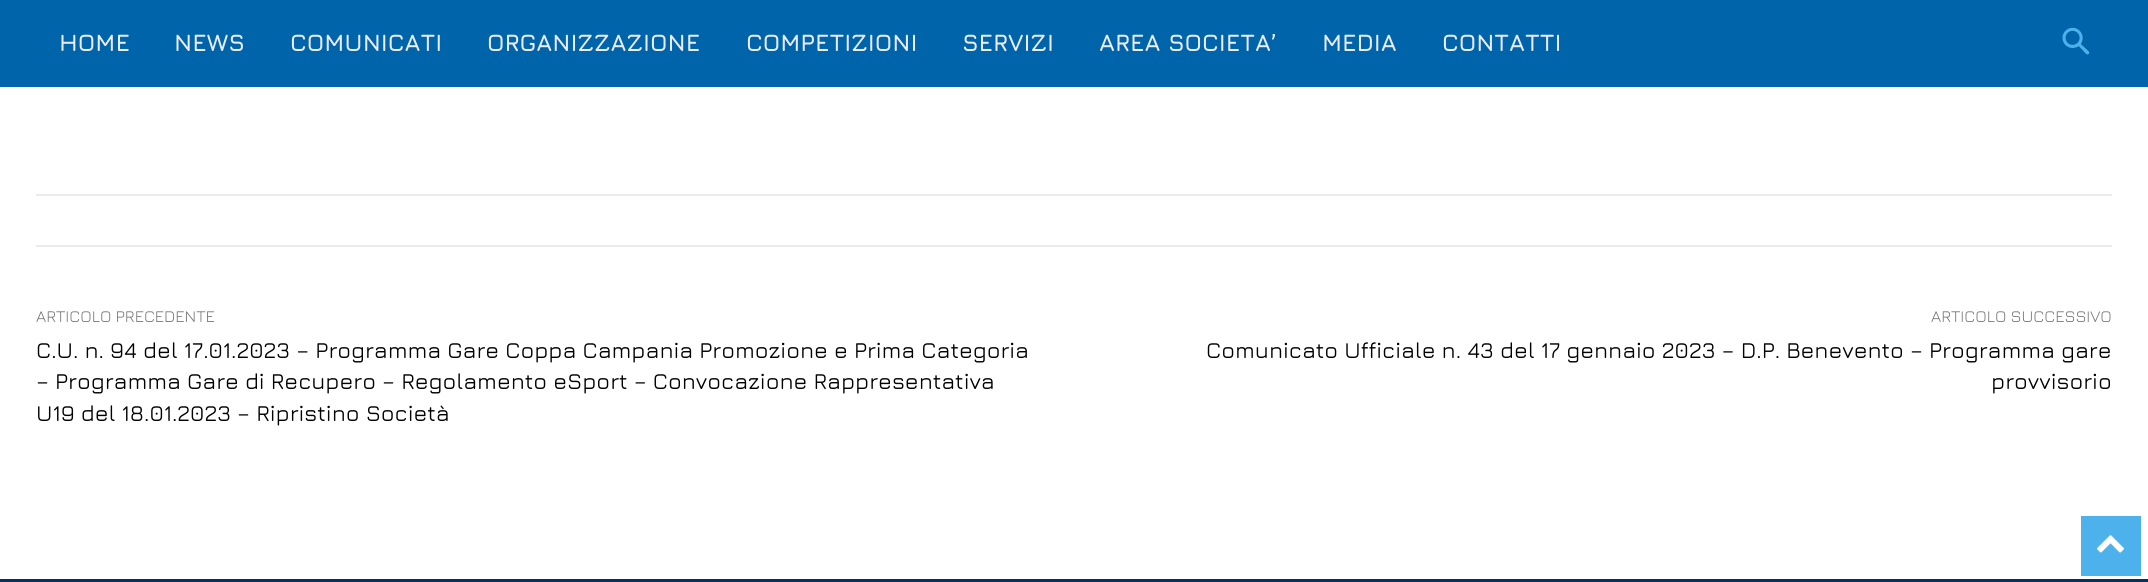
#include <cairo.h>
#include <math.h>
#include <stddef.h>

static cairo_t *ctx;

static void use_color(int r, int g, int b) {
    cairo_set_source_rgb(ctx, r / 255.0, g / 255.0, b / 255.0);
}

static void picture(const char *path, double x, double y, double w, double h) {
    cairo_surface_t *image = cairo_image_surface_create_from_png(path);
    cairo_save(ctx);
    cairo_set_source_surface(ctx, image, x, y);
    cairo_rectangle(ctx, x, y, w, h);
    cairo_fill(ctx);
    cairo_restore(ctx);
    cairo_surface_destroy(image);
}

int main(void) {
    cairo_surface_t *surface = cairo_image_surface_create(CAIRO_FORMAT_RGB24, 2148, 582);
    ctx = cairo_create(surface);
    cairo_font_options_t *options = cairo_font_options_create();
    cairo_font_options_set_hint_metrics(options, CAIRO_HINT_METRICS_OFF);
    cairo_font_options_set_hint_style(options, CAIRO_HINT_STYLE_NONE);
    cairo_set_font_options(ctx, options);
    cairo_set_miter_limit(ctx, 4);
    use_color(255, 255, 255);
    cairo_paint(ctx);
    use_color(0, 100, 171);
    cairo_rectangle(ctx, 0, 0, 2148, 87);
    cairo_fill(ctx);
    cairo_select_font_face(ctx, "Jura", CAIRO_FONT_SLANT_NORMAL, CAIRO_FONT_WEIGHT_BOLD);
    cairo_set_font_size(ctx, 24);
    use_color(234, 236, 248);
    cairo_move_to(ctx, 59, 51);
    cairo_show_text(ctx, "HOME");
    cairo_move_to(ctx, 174, 51);
    cairo_show_text(ctx, "NEWS");
    cairo_move_to(ctx, 290, 51);
    cairo_show_text(ctx, "COMUNICATI");
    cairo_move_to(ctx, 487, 51);
    cairo_show_text(ctx, "ORGANIZZAZIONE");
    cairo_move_to(ctx, 746, 51);
    cairo_show_text(ctx, "COMPETIZIONI");
    cairo_move_to(ctx, 962, 51);
    cairo_show_text(ctx, "SERVIZI");
    cairo_move_to(ctx, 1099, 51);
    cairo_show_text(ctx, "AREA SOCIETA’");
    cairo_move_to(ctx, 1322, 51);
    cairo_show_text(ctx, "MEDIA");
    cairo_move_to(ctx, 1442, 51);
    cairo_show_text(ctx, "CONTATTI");
    picture("img1.png", 2062, 27, 28, 28);
    use_color(235, 235, 235);
    cairo_rectangle(ctx, 36, 194, 2076, 2);
    cairo_fill(ctx);
    cairo_rectangle(ctx, 36, 245, 2076, 2);
    cairo_fill(ctx);
    cairo_select_font_face(ctx, "Jura", CAIRO_FONT_SLANT_NORMAL, CAIRO_FONT_WEIGHT_NORMAL);
    cairo_set_font_size(ctx, 16.5);
    use_color(116, 116, 116);
    cairo_move_to(ctx, 36, 322);
    cairo_show_text(ctx, "ARTICOLO PRECEDENTE");
    cairo_select_font_face(ctx, "Jura Medium", CAIRO_FONT_SLANT_NORMAL, CAIRO_FONT_WEIGHT_NORMAL);
    cairo_set_font_size(ctx, 22.5);
    use_color(0, 0, 0);
    cairo_move_to(ctx, 36, 358);
    cairo_show_text(ctx, "C.U. n. 94 del 17.01.2023 – Programma Gare Coppa Campania Promozione e Prima Categoria");
    cairo_move_to(ctx, 36, 389);
    cairo_show_text(ctx, "– Programma Gare di Recupero – Regolamento eSport – Convocazione Rappresentativa");
    cairo_move_to(ctx, 36, 421);
    cairo_show_text(ctx, "U19 del 18.01.2023 – Ripristino Società");
    cairo_select_font_face(ctx, "Jura", CAIRO_FONT_SLANT_NORMAL, CAIRO_FONT_WEIGHT_NORMAL);
    cairo_set_font_size(ctx, 16.5);
    use_color(116, 116, 116);
    cairo_move_to(ctx, 1931, 322);
    cairo_show_text(ctx, "ARTICOLO SUCCESSIVO");
    cairo_select_font_face(ctx, "Jura Medium", CAIRO_FONT_SLANT_NORMAL, CAIRO_FONT_WEIGHT_NORMAL);
    cairo_set_font_size(ctx, 22.5);
    use_color(0, 0, 0);
    cairo_move_to(ctx, 1206, 358);
    cairo_show_text(ctx, "Comunicato Ufficiale n. 43 del 17 gennaio 2023 – D.P. Benevento – Programma gare");
    cairo_move_to(ctx, 1991, 389);
    cairo_show_text(ctx, "provvisorio");
    use_color(8, 48, 94);
    cairo_rectangle(ctx, 0, 579, 2148, 3);
    cairo_fill(ctx);
    use_color(77, 178, 236);
    cairo_rectangle(ctx, 2081, 516, 60, 60);
    cairo_fill(ctx);
    picture("img2.png", 2097, 535, 27, 18);
    cairo_surface_write_to_png(surface, "result.png");
    cairo_font_options_destroy(options);
    cairo_destroy(ctx);
    cairo_surface_destroy(surface);
    return 0;
}
